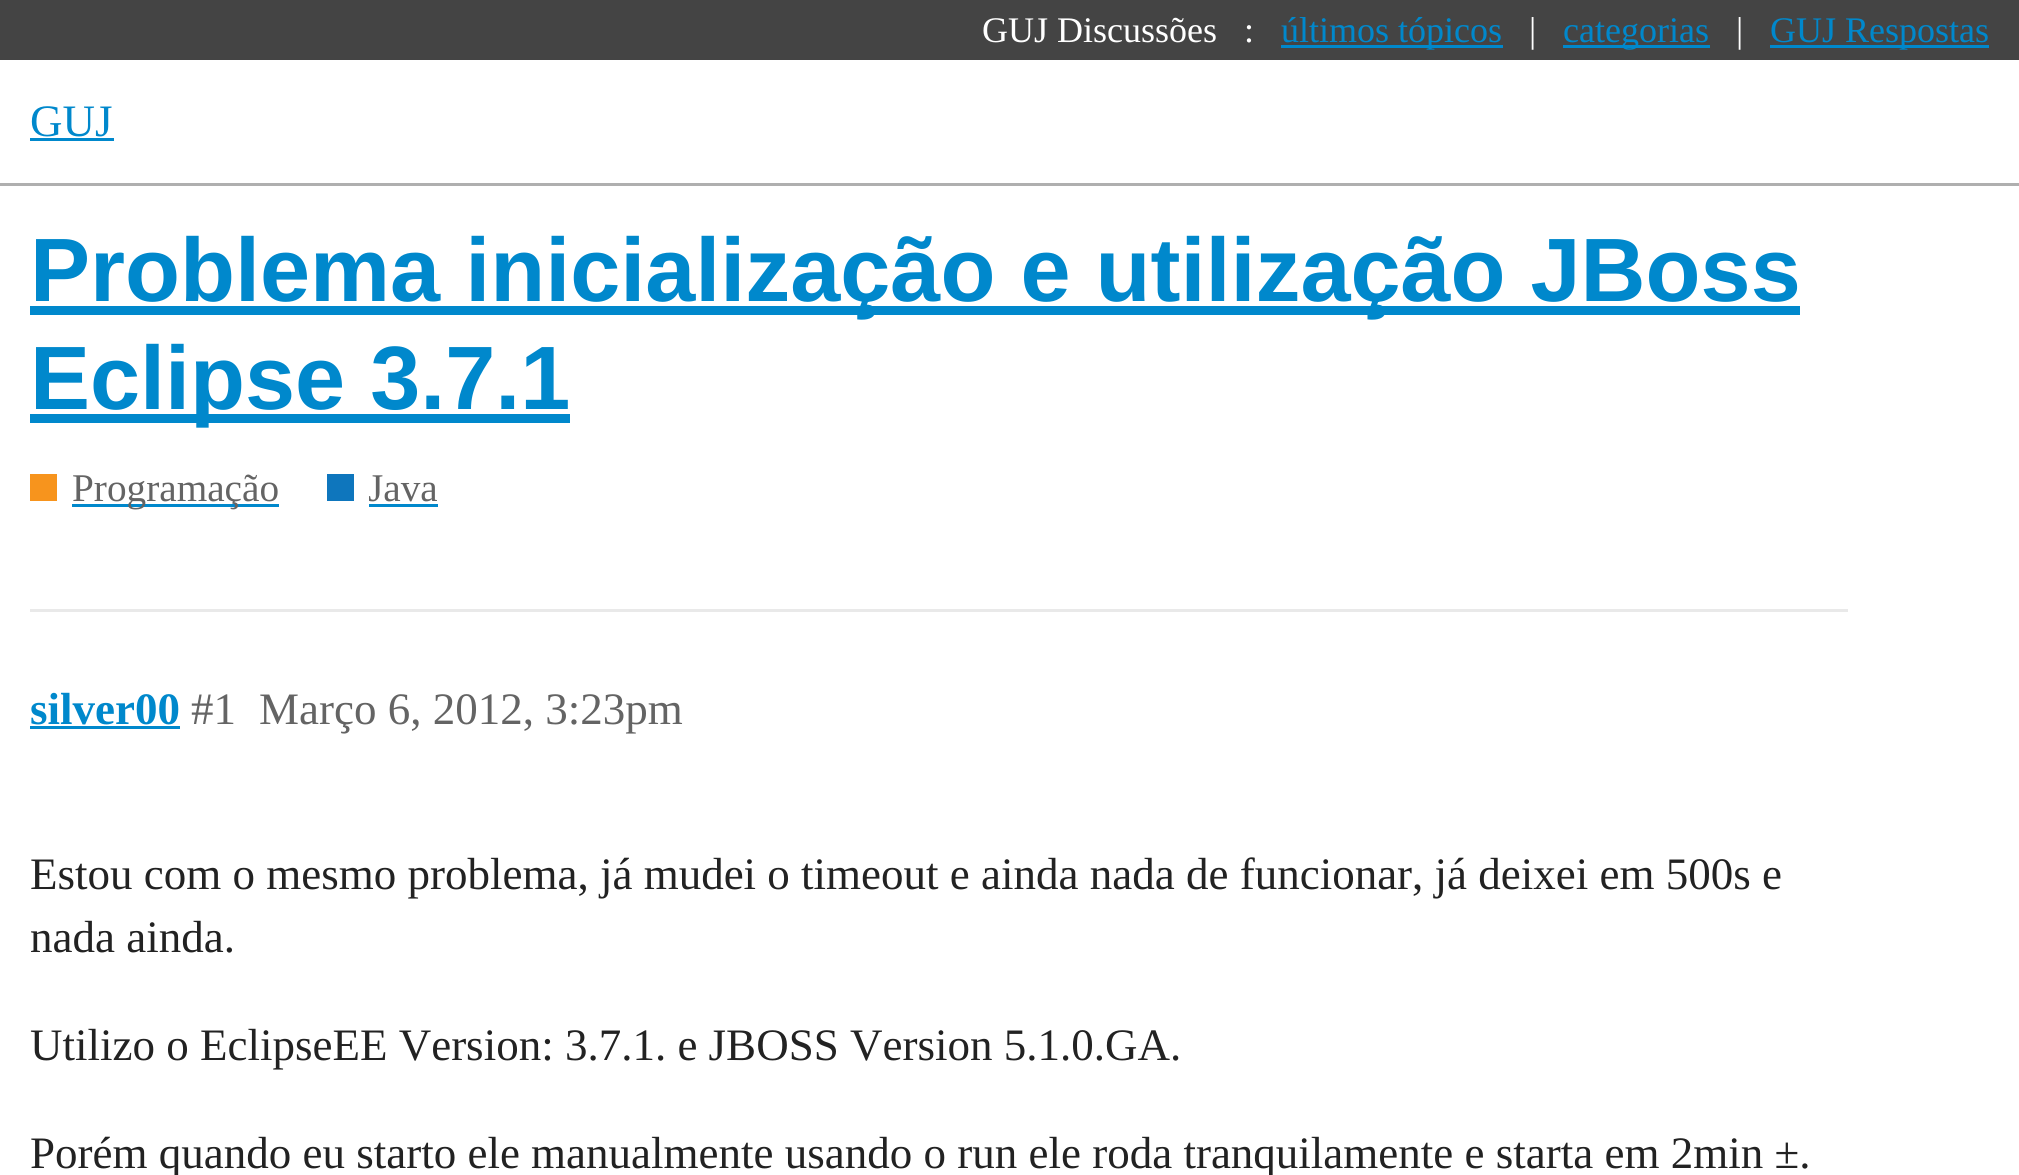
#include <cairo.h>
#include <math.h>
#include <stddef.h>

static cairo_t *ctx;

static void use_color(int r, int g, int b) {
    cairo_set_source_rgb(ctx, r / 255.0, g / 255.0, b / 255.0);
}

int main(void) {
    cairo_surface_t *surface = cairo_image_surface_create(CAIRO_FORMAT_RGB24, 2019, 1175);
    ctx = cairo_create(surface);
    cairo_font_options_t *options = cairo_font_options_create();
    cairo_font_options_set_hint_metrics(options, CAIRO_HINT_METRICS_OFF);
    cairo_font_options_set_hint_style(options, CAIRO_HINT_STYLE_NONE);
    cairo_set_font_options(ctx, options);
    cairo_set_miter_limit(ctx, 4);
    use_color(255, 255, 255);
    cairo_paint(ctx);
    use_color(68, 68, 68);
    cairo_rectangle(ctx, 0, 0, 2019, 60);
    cairo_fill(ctx);
    cairo_select_font_face(ctx, "Liberation Serif", CAIRO_FONT_SLANT_NORMAL, CAIRO_FONT_WEIGHT_NORMAL);
    cairo_set_font_size(ctx, 36);
    use_color(255, 255, 255);
    cairo_move_to(ctx, 982, 42);
    cairo_show_text(ctx, "GUJ Discussões   :");
    use_color(0, 136, 204);
    cairo_rectangle(ctx, 1281, 45, 222, 3);
    cairo_fill(ctx);
    cairo_move_to(ctx, 1281, 42);
    cairo_show_text(ctx, "últimos tópicos");
    use_color(255, 255, 255);
    cairo_move_to(ctx, 1529, 42);
    cairo_show_text(ctx, "|");
    use_color(0, 136, 204);
    cairo_rectangle(ctx, 1563, 45, 147, 3);
    cairo_fill(ctx);
    cairo_move_to(ctx, 1563, 42);
    cairo_show_text(ctx, "categorias");
    use_color(255, 255, 255);
    cairo_move_to(ctx, 1736, 42);
    cairo_show_text(ctx, "|");
    use_color(0, 136, 204);
    cairo_rectangle(ctx, 1770, 45, 219, 3);
    cairo_fill(ctx);
    cairo_move_to(ctx, 1770, 42);
    cairo_show_text(ctx, "GUJ Respostas");
    use_color(175, 175, 175);
    cairo_rectangle(ctx, 0, 183, 2019, 3);
    cairo_fill(ctx);
    cairo_set_font_size(ctx, 45);
    use_color(0, 136, 204);
    cairo_move_to(ctx, 30, 136);
    cairo_show_text(ctx, "GUJ");
    cairo_rectangle(ctx, 30, 138, 84, 3);
    cairo_fill(ctx);
    cairo_rectangle(ctx, 30, 306, 1770, 9);
    cairo_fill(ctx);
    cairo_select_font_face(ctx, "Liberation Sans", CAIRO_FONT_SLANT_NORMAL, CAIRO_FONT_WEIGHT_BOLD);
    cairo_set_font_size(ctx, 90);
    cairo_move_to(ctx, 30, 301);
    cairo_show_text(ctx, "Problema inicialização e utilização JBoss");
    cairo_rectangle(ctx, 30, 414, 540, 9);
    cairo_fill(ctx);
    cairo_move_to(ctx, 30, 409);
    cairo_show_text(ctx, "Eclipse 3.7.1");
    use_color(247, 148, 29);
    cairo_rectangle(ctx, 30, 474, 27, 27);
    cairo_fill(ctx);
    use_color(0, 136, 204);
    cairo_rectangle(ctx, 72, 504, 207, 3);
    cairo_fill(ctx);
    cairo_select_font_face(ctx, "Liberation Serif", CAIRO_FONT_SLANT_NORMAL, CAIRO_FONT_WEIGHT_NORMAL);
    cairo_set_font_size(ctx, 39.25);
    use_color(100, 100, 100);
    cairo_move_to(ctx, 72, 501);
    cairo_show_text(ctx, "Programação");
    use_color(14, 118, 189);
    cairo_rectangle(ctx, 327, 474, 27, 27);
    cairo_fill(ctx);
    cairo_save(ctx);
    cairo_rectangle(ctx, 369, 462, 69, 54);
    cairo_clip(ctx);
    use_color(100, 100, 100);
    cairo_move_to(ctx, 368, 501);
    cairo_show_text(ctx, "Java");
    cairo_restore(ctx);
    use_color(0, 136, 204);
    cairo_rectangle(ctx, 369, 504, 69, 3);
    cairo_fill(ctx);
    use_color(233, 233, 233);
    cairo_rectangle(ctx, 30, 609, 1818, 3);
    cairo_fill(ctx);
    cairo_select_font_face(ctx, "Liberation Serif", CAIRO_FONT_SLANT_NORMAL, CAIRO_FONT_WEIGHT_BOLD);
    cairo_set_font_size(ctx, 45);
    use_color(0, 136, 204);
    cairo_move_to(ctx, 30, 724);
    cairo_show_text(ctx, "silver00");
    cairo_rectangle(ctx, 30, 726, 150, 3);
    cairo_fill(ctx);
    cairo_select_font_face(ctx, "Liberation Serif", CAIRO_FONT_SLANT_NORMAL, CAIRO_FONT_WEIGHT_NORMAL);
    use_color(100, 100, 100);
    cairo_move_to(ctx, 191, 724);
    cairo_show_text(ctx, "#1");
    cairo_move_to(ctx, 259, 724);
    cairo_show_text(ctx, "Março 6, 2012, 3:23pm");
    use_color(34, 34, 34);
    cairo_move_to(ctx, 30, 889);
    cairo_show_text(ctx, "Estou com o mesmo problema, já mudei o timeout e ainda nada de funcionar, já deixei em 500s e");
    cairo_move_to(ctx, 30, 952);
    cairo_show_text(ctx, "nada ainda.");
    cairo_move_to(ctx, 30, 1060);
    cairo_show_text(ctx, "Utilizo o EclipseEE Version: 3.7.1. e JBOSS Version 5.1.0.GA.");
    cairo_move_to(ctx, 30, 1168);
    cairo_show_text(ctx, "Porém quando eu starto ele manualmente usando o run ele roda tranquilamente e starta em 2min ±.");
    cairo_surface_write_to_png(surface, "result.png");
    cairo_font_options_destroy(options);
    cairo_destroy(ctx);
    cairo_surface_destroy(surface);
    return 0;
}
